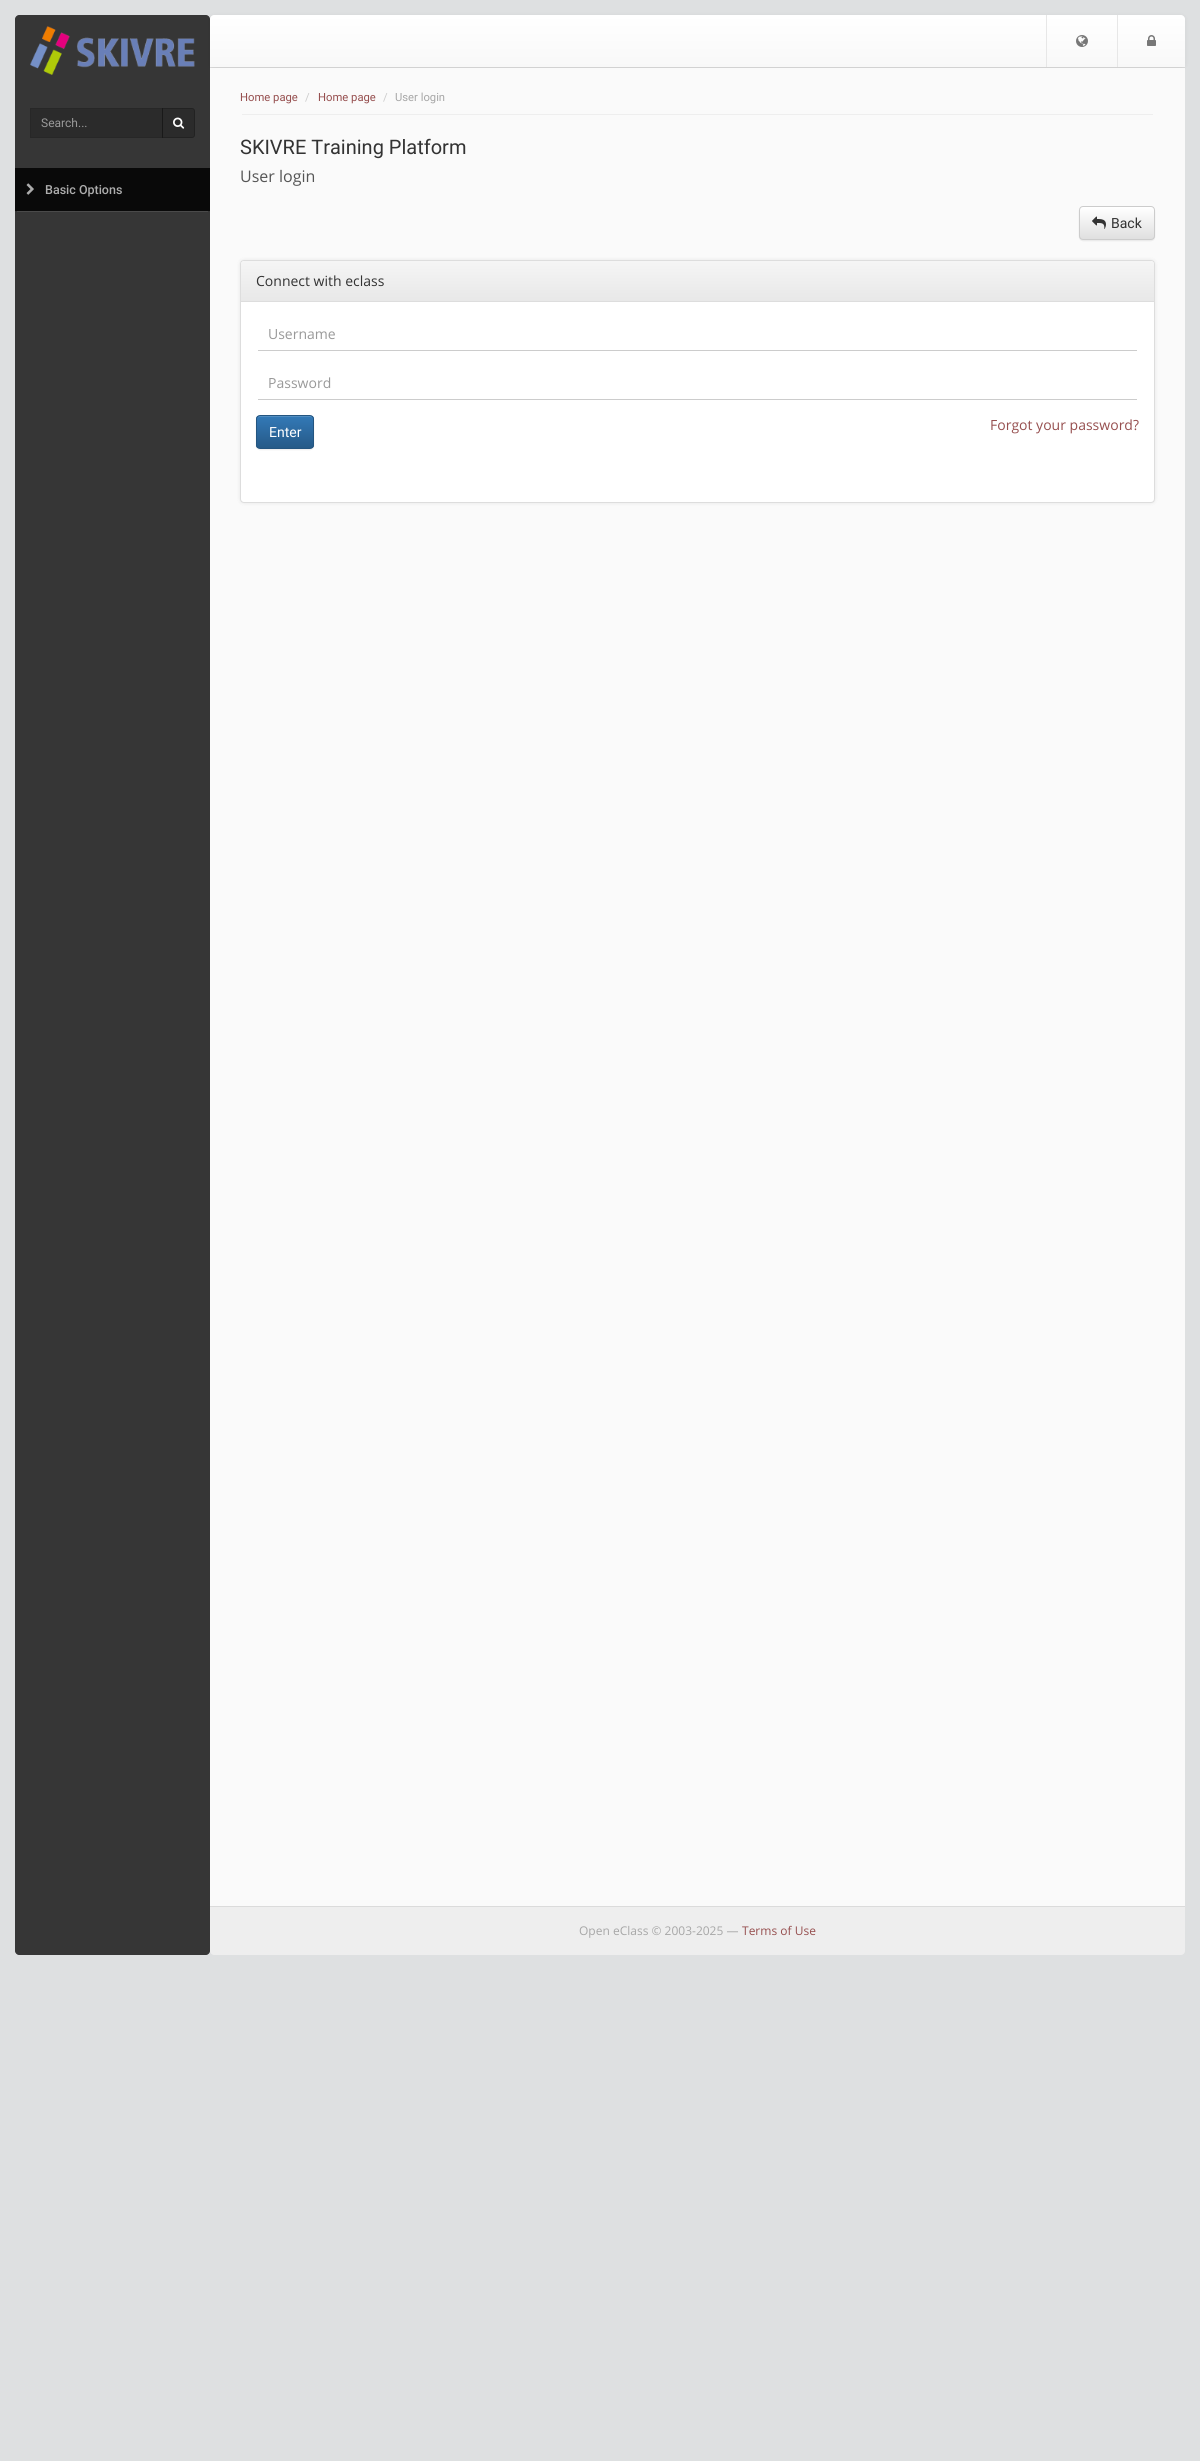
#include <cairo.h>
#include <math.h>
#include <stddef.h>

static cairo_t *ctx;

static void use_color(int r, int g, int b) {
    cairo_set_source_rgb(ctx, r / 255.0, g / 255.0, b / 255.0);
}

static void round_rect(double x, double y, double w, double h, double r) {
    cairo_new_sub_path(ctx);
    cairo_arc(ctx, x + w - r, y + h - r, r, 0, M_PI / 2);
    cairo_arc(ctx, x + r, y + h - r, r, M_PI / 2, M_PI);
    cairo_arc(ctx, x + r, y + r, r, M_PI, 1.5 * M_PI);
    cairo_arc(ctx, x + w - r, y + r, r, 1.5 * M_PI, 2 * M_PI);
    cairo_close_path(ctx);
}

static void shadow(double x, double y, double w, double h, double r, double blur, double alpha) {
    cairo_push_group_with_content(ctx, CAIRO_CONTENT_ALPHA);
    cairo_set_operator(ctx, CAIRO_OPERATOR_SOURCE);
    for (int i = 15; i >= -15 && fmin(w, h) + blur * i / 3 > 0; i -= 2) {
        double e = blur * i / 6;
        cairo_set_source_rgba(ctx, 0, 0, 0, alpha * erfc((i - 1) / 8.5) / 2);
        round_rect(x - e, y - e, w + 2 * e, h + 2 * e, fmax(0, fmin(r + e + blur * .6, fmin(w, h) / 2 + e)));
        cairo_fill(ctx);
    }
    cairo_pattern_t *soft = cairo_pop_group(ctx);
    cairo_mask(ctx, soft);
    cairo_pattern_destroy(soft);
}

static void picture(const char *path, double x, double y, double w, double h) {
    cairo_surface_t *image = cairo_image_surface_create_from_png(path);
    cairo_save(ctx);
    cairo_set_source_surface(ctx, image, x, y);
    cairo_rectangle(ctx, x, y, w, h);
    cairo_fill(ctx);
    cairo_restore(ctx);
    cairo_surface_destroy(image);
}

int main(void) {
    cairo_surface_t *surface = cairo_image_surface_create(CAIRO_FORMAT_RGB24, 1200, 2461);
    ctx = cairo_create(surface);
    cairo_font_options_t *options = cairo_font_options_create();
    cairo_font_options_set_hint_metrics(options, CAIRO_HINT_METRICS_OFF);
    cairo_font_options_set_hint_style(options, CAIRO_HINT_STYLE_NONE);
    cairo_set_font_options(ctx, options);
    cairo_set_miter_limit(ctx, 4);
    cairo_pattern_t *gradient;
    use_color(222, 224, 225);
    cairo_paint(ctx);
    use_color(54, 54, 54);
    cairo_new_path(ctx);
    cairo_move_to(ctx, 19, 15);
    cairo_line_to(ctx, 206, 15);
    cairo_curve_to(ctx, 208, 15, 210, 17, 210, 19);
    cairo_line_to(ctx, 210, 68);
    cairo_line_to(ctx, 15, 68);
    cairo_line_to(ctx, 15, 19);
    cairo_curve_to(ctx, 15, 17, 17, 15, 19, 15);
    cairo_close_path(ctx);
    cairo_fill(ctx);
    use_color(219, 219, 219);
    cairo_rectangle(ctx, 210, 67, 975, 1);
    cairo_fill(ctx);
    use_color(0, 0, 0);
    shadow(210, 16, 975, 52, 4, 2.5, 0.07);
    gradient = cairo_pattern_create_linear(698, 15, 698, 67);
    cairo_pattern_add_color_stop_rgba(gradient, 0, 1, 1, 1, 1);
    cairo_pattern_add_color_stop_rgba(gradient, 1, 0.973, 0.973, 0.973, 1);
    cairo_set_source(ctx, gradient);
    cairo_pattern_destroy(gradient);
    cairo_new_path(ctx);
    cairo_move_to(ctx, 214, 15);
    cairo_line_to(ctx, 1181, 15);
    cairo_curve_to(ctx, 1183, 15, 1185, 17, 1185, 19);
    cairo_line_to(ctx, 1185, 67);
    cairo_line_to(ctx, 210, 67);
    cairo_line_to(ctx, 210, 19);
    cairo_curve_to(ctx, 210, 17, 212, 15, 214, 15);
    cairo_close_path(ctx);
    cairo_fill(ctx);
    use_color(231, 231, 231);
    cairo_rectangle(ctx, 1046, 15, 1, 52);
    cairo_fill(ctx);
    picture("img1.png", 1076, 35, 12, 12);
    cairo_rectangle(ctx, 1117, 15, 1, 52);
    cairo_fill(ctx);
    picture("img2.png", 1147, 35, 9, 11);
    use_color(54, 54, 54);
    cairo_rectangle(ctx, 15, 68, 195, 1838);
    cairo_fill(ctx);
    use_color(250, 250, 250);
    cairo_rectangle(ctx, 210, 68, 975, 1838);
    cairo_fill(ctx);
    picture("img3.png", 30, 26, 165, 49);
    use_color(43, 43, 43);
    cairo_rectangle(ctx, 30.5, 108.5, 132, 29);
    cairo_fill_preserve(ctx);
    use_color(39, 39, 39);
    cairo_set_line_width(ctx, 1);
    cairo_stroke(ctx);
    cairo_select_font_face(ctx, "Roboto", CAIRO_FONT_SLANT_NORMAL, CAIRO_FONT_WEIGHT_NORMAL);
    cairo_set_font_size(ctx, 12);
    use_color(153, 153, 153);
    cairo_move_to(ctx, 41, 127);
    cairo_show_text(ctx, "Search...");
    cairo_set_source_rgba(ctx, 0, 0, 0, 0.2);
    cairo_new_path(ctx);
    cairo_move_to(ctx, 162, 108);
    cairo_line_to(ctx, 192, 108);
    cairo_curve_to(ctx, 193.5, 108, 195, 109.5, 195, 111);
    cairo_line_to(ctx, 195, 135);
    cairo_curve_to(ctx, 195, 136.5, 193.5, 138, 192, 138);
    cairo_line_to(ctx, 162, 138);
    cairo_close_path(ctx);
    cairo_fill(ctx);
    cairo_new_path(ctx);
    cairo_move_to(ctx, 162.5, 108.5);
    cairo_line_to(ctx, 192, 108.5);
    cairo_curve_to(ctx, 193.5, 108.5, 194.5, 109.5, 194.5, 111);
    cairo_line_to(ctx, 194.5, 135);
    cairo_curve_to(ctx, 194.5, 136.5, 193.5, 137.5, 192, 137.5);
    cairo_line_to(ctx, 162.5, 137.5);
    cairo_close_path(ctx);
    cairo_stroke(ctx);
    picture("img4.png", 173, 117, 12, 12);
    use_color(74, 74, 74);
    cairo_rectangle(ctx, 17, 211, 191, 1);
    cairo_fill(ctx);
    use_color(9, 9, 9);
    cairo_rectangle(ctx, 15, 168, 195, 43);
    cairo_fill(ctx);
    picture("img5.png", 26, 183, 8, 12);
    cairo_select_font_face(ctx, "Roboto Medium", CAIRO_FONT_SLANT_NORMAL, CAIRO_FONT_WEIGHT_NORMAL);
    cairo_set_font_size(ctx, 12.5);
    use_color(173, 173, 173);
    cairo_move_to(ctx, 45, 194);
    cairo_show_text(ctx, "Basic Options");
    use_color(238, 238, 238);
    cairo_rectangle(ctx, 242, 114, 911, 1);
    cairo_fill(ctx);
    cairo_select_font_face(ctx, "Roboto", CAIRO_FONT_SLANT_NORMAL, CAIRO_FONT_WEIGHT_NORMAL);
    cairo_set_font_size(ctx, 11.25);
    use_color(150, 79, 79);
    cairo_move_to(ctx, 240, 101);
    cairo_show_text(ctx, "Home page");
    use_color(204, 204, 204);
    cairo_move_to(ctx, 305, 101);
    cairo_show_text(ctx, "/");
    use_color(150, 79, 79);
    cairo_move_to(ctx, 318, 101);
    cairo_show_text(ctx, "Home page");
    use_color(204, 204, 204);
    cairo_move_to(ctx, 383, 101);
    cairo_show_text(ctx, "/");
    use_color(167, 167, 167);
    cairo_move_to(ctx, 395, 101);
    cairo_show_text(ctx, "User login");
    cairo_set_font_size(ctx, 20);
    use_color(51, 51, 51);
    cairo_move_to(ctx, 240, 154);
    cairo_show_text(ctx, "SKIVRE Training Platform");
    cairo_select_font_face(ctx, "Open Sans", CAIRO_FONT_SLANT_NORMAL, CAIRO_FONT_WEIGHT_NORMAL);
    cairo_set_font_size(ctx, 16);
    use_color(85, 85, 85);
    cairo_move_to(ctx, 240, 182);
    cairo_show_text(ctx, "User login");
    use_color(0, 0, 0);
    shadow(1079, 207, 76, 34, 4, 0.5, 0.07);
    cairo_save(ctx);
    round_rect(1079, 206, 76, 34, 4);
    cairo_clip(ctx);
    gradient = cairo_pattern_create_linear(1117, 207, 1117, 239);
    cairo_pattern_add_color_stop_rgba(gradient, 0, 1, 1, 1, 1);
    cairo_pattern_add_color_stop_rgba(gradient, 1, 0.878, 0.878, 0.878, 1);
    cairo_set_source(ctx, gradient);
    cairo_pattern_destroy(gradient);
    cairo_rectangle(ctx, 1079, 207, 76, 32);
    cairo_fill(ctx);
    cairo_restore(ctx);
    round_rect(1079.5, 206.5, 75, 33, 3.5);
    use_color(204, 204, 204);
    cairo_stroke(ctx);
    picture("img6.png", 1092, 216, 14, 13);
    cairo_select_font_face(ctx, "Roboto", CAIRO_FONT_SLANT_NORMAL, CAIRO_FONT_WEIGHT_NORMAL);
    cairo_set_font_size(ctx, 14);
    use_color(51, 51, 51);
    cairo_move_to(ctx, 1111, 228);
    cairo_show_text(ctx, "Back");
    use_color(0, 0, 0);
    shadow(239, 259, 917, 245, 5, 1.5, 0.05);
    use_color(255, 255, 255);
    round_rect(240.5, 260.5, 914, 242, 3.5);
    cairo_fill_preserve(ctx);
    use_color(221, 221, 221);
    cairo_stroke(ctx);
    gradient = cairo_pattern_create_linear(698, 261, 698, 301);
    cairo_pattern_add_color_stop_rgba(gradient, 0, 0.961, 0.961, 0.961, 1);
    cairo_pattern_add_color_stop_rgba(gradient, 1, 0.91, 0.91, 0.91, 1);
    cairo_set_source(ctx, gradient);
    cairo_pattern_destroy(gradient);
    cairo_new_path(ctx);
    cairo_move_to(ctx, 244, 261);
    cairo_line_to(ctx, 1151, 261);
    cairo_curve_to(ctx, 1152.5, 261, 1154, 262.5, 1154, 264);
    cairo_line_to(ctx, 1154, 301);
    cairo_line_to(ctx, 241, 301);
    cairo_line_to(ctx, 241, 264);
    cairo_curve_to(ctx, 241, 262.5, 242.5, 261, 244, 261);
    cairo_close_path(ctx);
    cairo_fill(ctx);
    use_color(221, 221, 221);
    cairo_rectangle(ctx, 241, 301, 913, 1);
    cairo_fill(ctx);
    cairo_select_font_face(ctx, "Open Sans", CAIRO_FONT_SLANT_NORMAL, CAIRO_FONT_WEIGHT_NORMAL);
    use_color(51, 51, 51);
    cairo_move_to(ctx, 256, 286);
    cairo_show_text(ctx, "Connect with eclass");
    use_color(204, 204, 204);
    cairo_rectangle(ctx, 258, 350, 879, 1);
    cairo_fill(ctx);
    use_color(153, 153, 153);
    cairo_move_to(ctx, 268, 339);
    cairo_show_text(ctx, "Username");
    use_color(204, 204, 204);
    cairo_rectangle(ctx, 258, 399, 879, 1);
    cairo_fill(ctx);
    use_color(153, 153, 153);
    cairo_move_to(ctx, 268, 388);
    cairo_show_text(ctx, "Password");
    use_color(0, 0, 0);
    shadow(256, 416, 58, 34, 4, 0.5, 0.07);
    cairo_save(ctx);
    round_rect(256, 415, 58, 34, 4);
    cairo_clip(ctx);
    gradient = cairo_pattern_create_linear(285, 416, 285, 448);
    cairo_pattern_add_color_stop_rgba(gradient, 0, 0.2, 0.478, 0.718, 1);
    cairo_pattern_add_color_stop_rgba(gradient, 1, 0.149, 0.353, 0.533, 1);
    cairo_set_source(ctx, gradient);
    cairo_pattern_destroy(gradient);
    cairo_rectangle(ctx, 256, 416, 58, 32);
    cairo_fill(ctx);
    cairo_restore(ctx);
    use_color(82, 142, 193);
    cairo_new_path(ctx);
    cairo_move_to(ctx, 260, 417);
    cairo_line_to(ctx, 310, 417);
    cairo_curve_to(ctx, 312, 417, 313, 418, 313, 420);
    cairo_curve_to(ctx, 313, 414, 306, 416, 302, 416);
    cairo_line_to(ctx, 268, 416);
    cairo_curve_to(ctx, 264, 416, 257, 414, 257, 420);
    cairo_curve_to(ctx, 257, 418, 258, 417, 260, 417);
    cairo_close_path(ctx);
    cairo_fill(ctx);
    round_rect(256.5, 415.5, 57, 33, 3.5);
    use_color(36, 85, 128);
    cairo_stroke(ctx);
    cairo_select_font_face(ctx, "Roboto", CAIRO_FONT_SLANT_NORMAL, CAIRO_FONT_WEIGHT_NORMAL);
    use_color(255, 255, 255);
    cairo_move_to(ctx, 269, 437);
    cairo_show_text(ctx, "Enter");
    cairo_select_font_face(ctx, "Open Sans", CAIRO_FONT_SLANT_NORMAL, CAIRO_FONT_WEIGHT_NORMAL);
    use_color(150, 79, 79);
    cairo_move_to(ctx, 990, 430);
    cairo_show_text(ctx, "Forgot your password?");
    use_color(54, 54, 54);
    cairo_new_path(ctx);
    cairo_move_to(ctx, 15, 1906);
    cairo_line_to(ctx, 210, 1906);
    cairo_line_to(ctx, 210, 1951);
    cairo_curve_to(ctx, 210, 1953, 208, 1955, 206, 1955);
    cairo_line_to(ctx, 19, 1955);
    cairo_curve_to(ctx, 17, 1955, 15, 1953, 15, 1951);
    cairo_close_path(ctx);
    cairo_fill(ctx);
    use_color(238, 238, 238);
    cairo_new_path(ctx);
    cairo_move_to(ctx, 210, 1906);
    cairo_line_to(ctx, 1185, 1906);
    cairo_line_to(ctx, 1185, 1951);
    cairo_curve_to(ctx, 1185, 1953, 1183, 1955, 1181, 1955);
    cairo_line_to(ctx, 214, 1955);
    cairo_curve_to(ctx, 212, 1955, 210, 1953, 210, 1951);
    cairo_close_path(ctx);
    cairo_fill(ctx);
    use_color(219, 219, 219);
    cairo_rectangle(ctx, 210, 1906, 975, 1);
    cairo_fill(ctx);
    cairo_set_font_size(ctx, 12);
    use_color(167, 167, 167);
    cairo_move_to(ctx, 579, 1935);
    cairo_show_text(ctx, "Open eClass © 2003-2025 —");
    use_color(150, 79, 79);
    cairo_move_to(ctx, 742, 1935);
    cairo_show_text(ctx, "Terms of Use");
    cairo_surface_write_to_png(surface, "result.png");
    cairo_font_options_destroy(options);
    cairo_destroy(ctx);
    cairo_surface_destroy(surface);
    return 0;
}
